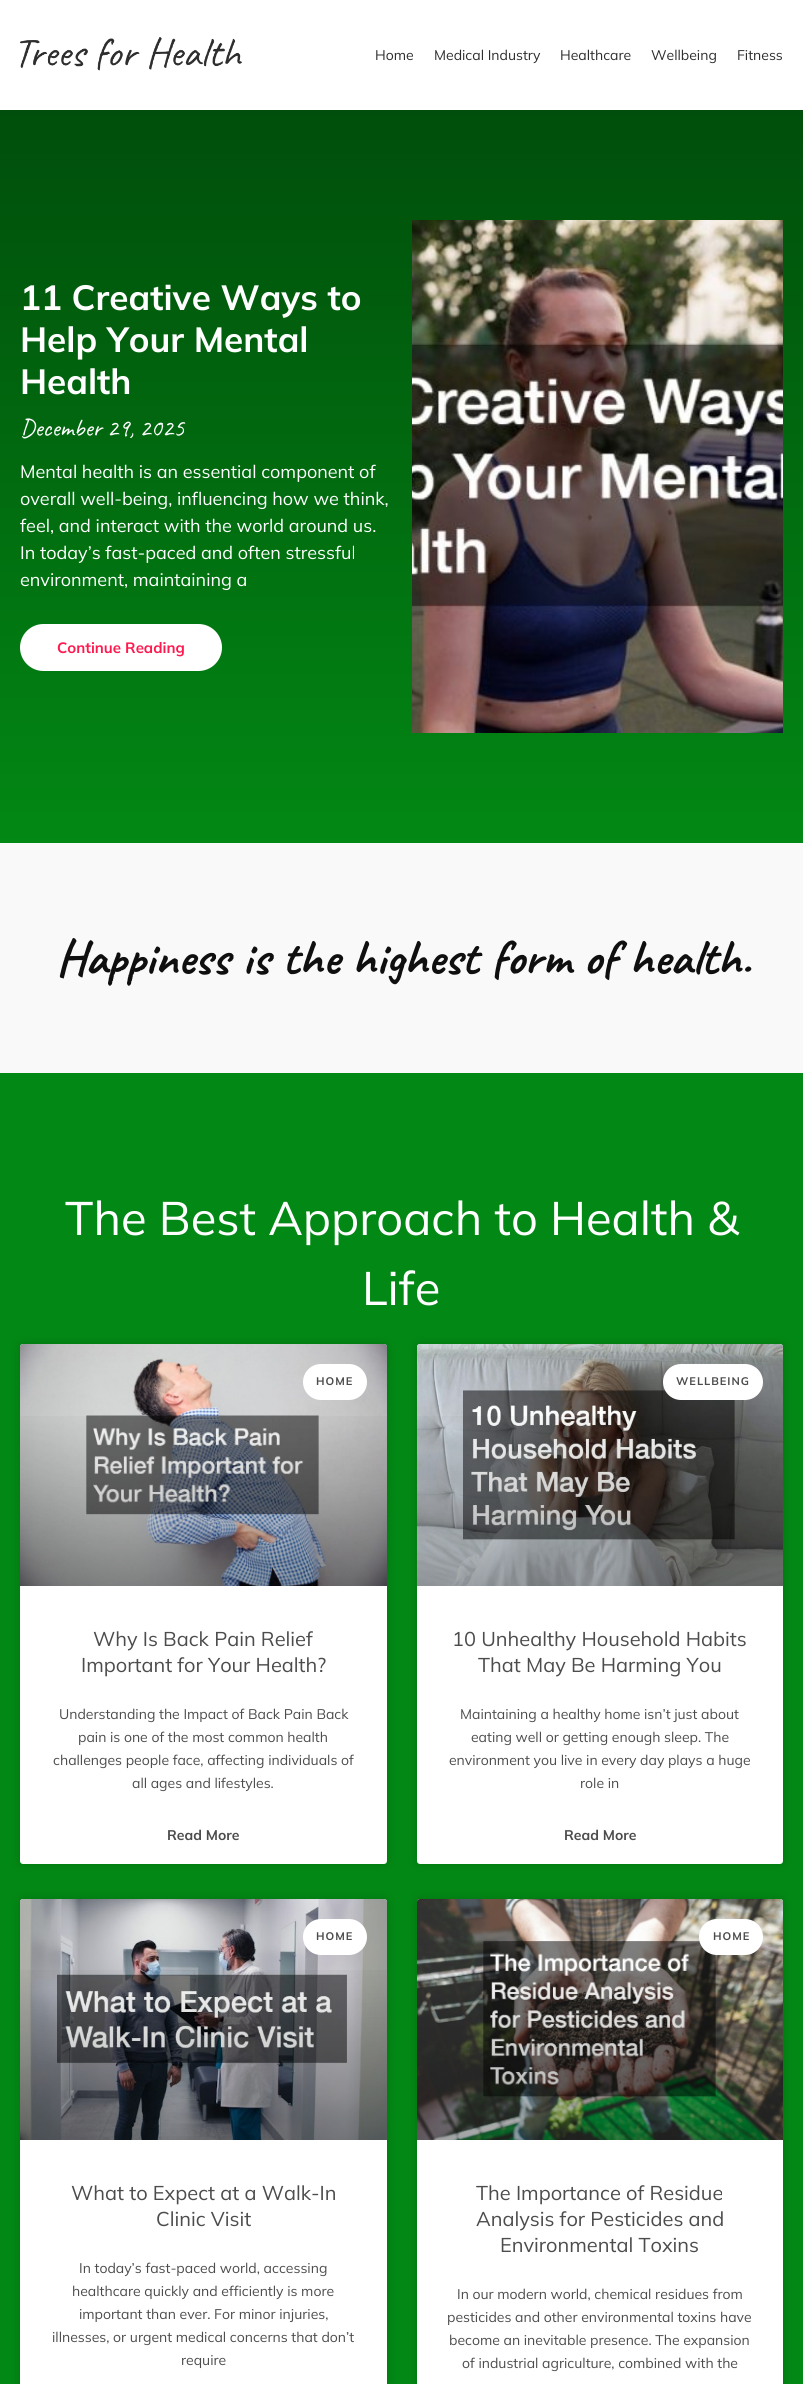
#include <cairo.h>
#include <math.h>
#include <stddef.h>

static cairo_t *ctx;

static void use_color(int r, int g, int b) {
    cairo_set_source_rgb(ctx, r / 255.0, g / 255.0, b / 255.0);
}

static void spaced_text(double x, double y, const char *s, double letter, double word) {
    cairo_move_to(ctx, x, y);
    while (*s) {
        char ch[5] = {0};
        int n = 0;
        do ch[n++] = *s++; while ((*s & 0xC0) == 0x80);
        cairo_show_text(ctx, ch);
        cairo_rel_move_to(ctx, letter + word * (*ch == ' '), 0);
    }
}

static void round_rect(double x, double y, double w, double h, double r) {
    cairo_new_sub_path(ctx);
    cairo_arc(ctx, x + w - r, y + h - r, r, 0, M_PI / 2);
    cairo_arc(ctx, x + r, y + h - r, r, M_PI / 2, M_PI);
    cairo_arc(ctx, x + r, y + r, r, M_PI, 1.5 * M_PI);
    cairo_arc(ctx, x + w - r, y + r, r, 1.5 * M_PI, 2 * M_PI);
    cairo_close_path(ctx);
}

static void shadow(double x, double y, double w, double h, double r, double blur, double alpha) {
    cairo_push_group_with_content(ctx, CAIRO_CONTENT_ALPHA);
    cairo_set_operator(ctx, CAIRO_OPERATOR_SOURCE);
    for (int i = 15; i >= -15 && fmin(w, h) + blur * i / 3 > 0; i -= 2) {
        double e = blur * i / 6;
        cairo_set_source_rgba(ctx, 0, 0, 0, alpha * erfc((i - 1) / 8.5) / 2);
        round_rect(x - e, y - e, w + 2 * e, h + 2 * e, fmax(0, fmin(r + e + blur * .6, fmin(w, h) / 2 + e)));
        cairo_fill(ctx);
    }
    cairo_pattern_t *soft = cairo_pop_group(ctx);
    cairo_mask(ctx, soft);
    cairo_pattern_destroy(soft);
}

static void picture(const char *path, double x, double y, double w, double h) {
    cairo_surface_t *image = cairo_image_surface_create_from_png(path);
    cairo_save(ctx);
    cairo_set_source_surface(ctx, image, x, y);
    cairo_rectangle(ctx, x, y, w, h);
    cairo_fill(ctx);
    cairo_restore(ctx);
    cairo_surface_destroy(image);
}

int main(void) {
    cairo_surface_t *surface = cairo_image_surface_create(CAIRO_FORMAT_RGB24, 803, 2384);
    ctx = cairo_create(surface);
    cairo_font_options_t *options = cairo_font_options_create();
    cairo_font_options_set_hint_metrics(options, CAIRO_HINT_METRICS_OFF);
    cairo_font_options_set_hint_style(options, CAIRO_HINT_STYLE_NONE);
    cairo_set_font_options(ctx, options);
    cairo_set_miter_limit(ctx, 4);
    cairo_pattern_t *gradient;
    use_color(255, 255, 255);
    cairo_paint(ctx);
    picture("img1.png", 20, 37, 222, 34);
    cairo_select_font_face(ctx, "Mulish", CAIRO_FONT_SLANT_NORMAL, CAIRO_FONT_WEIGHT_NORMAL);
    cairo_set_font_size(ctx, 14);
    use_color(45, 45, 45);
    cairo_move_to(ctx, 375, 60);
    cairo_show_text(ctx, "Home");
    cairo_move_to(ctx, 434, 60);
    cairo_show_text(ctx, "Medical Industry");
    cairo_move_to(ctx, 560, 60);
    cairo_show_text(ctx, "Healthcare");
    cairo_move_to(ctx, 651, 60);
    cairo_show_text(ctx, "Wellbeing");
    cairo_move_to(ctx, 737, 60);
    cairo_show_text(ctx, "Fitness");
    gradient = cairo_pattern_create_linear(402, 843, 402, 110);
    cairo_pattern_add_color_stop_rgba(gradient, 0, 0.008, 0.533, 0.078, 1);
    cairo_pattern_add_color_stop_rgba(gradient, 1, 0, 0.306, 0.043, 1);
    cairo_set_source(ctx, gradient);
    cairo_pattern_destroy(gradient);
    cairo_rectangle(ctx, 0, 110, 803, 733);
    cairo_fill(ctx);
    cairo_select_font_face(ctx, "Mulish", CAIRO_FONT_SLANT_NORMAL, CAIRO_FONT_WEIGHT_BOLD);
    cairo_set_font_size(ctx, 35);
    use_color(255, 255, 255);
    cairo_move_to(ctx, 20, 310);
    cairo_show_text(ctx, "11 Creative Ways to");
    cairo_move_to(ctx, 20, 352);
    cairo_show_text(ctx, "Help Your Mental");
    cairo_move_to(ctx, 20, 394);
    cairo_show_text(ctx, "Health");
    cairo_select_font_face(ctx, "Caveat", CAIRO_FONT_SLANT_NORMAL, CAIRO_FONT_WEIGHT_NORMAL);
    cairo_set_font_size(ctx, 25);
    spaced_text(20, 436, "December 29, 2025", 0, -1);
    cairo_select_font_face(ctx, "Mulish", CAIRO_FONT_SLANT_NORMAL, CAIRO_FONT_WEIGHT_NORMAL);
    cairo_set_font_size(ctx, 18);
    cairo_move_to(ctx, 20, 478);
    cairo_show_text(ctx, "Mental health is an essential component of");
    cairo_move_to(ctx, 20, 505);
    cairo_show_text(ctx, "overall well-being, influencing how we think,");
    cairo_move_to(ctx, 20, 532);
    cairo_show_text(ctx, "feel, and interact with the world around us.");
    cairo_move_to(ctx, 20, 559);
    cairo_show_text(ctx, "In today’s fast-paced and often stressful");
    cairo_move_to(ctx, 20, 586);
    cairo_show_text(ctx, "environment, maintaining a");
    round_rect(21, 625, 200, 45, 22.5);
    cairo_fill_preserve(ctx);
    cairo_stroke(ctx);
    cairo_select_font_face(ctx, "Mulish", CAIRO_FONT_SLANT_NORMAL, CAIRO_FONT_WEIGHT_BOLD);
    cairo_set_font_size(ctx, 15);
    use_color(255, 25, 79);
    cairo_move_to(ctx, 57, 653);
    cairo_show_text(ctx, "Continue Reading");
    picture("img2.png", 412, 220, 371, 513);
    use_color(249, 249, 249);
    cairo_rectangle(ctx, 0, 843, 803, 230);
    cairo_fill(ctx);
    cairo_select_font_face(ctx, "Caveat", CAIRO_FONT_SLANT_NORMAL, CAIRO_FONT_WEIGHT_BOLD);
    cairo_set_font_size(ctx, 50);
    use_color(15, 15, 15);
    spaced_text(56, 974, "Happiness is the highest form of health.", 0, 0.75);
    use_color(2, 136, 20);
    cairo_rectangle(ctx, 0, 1073, 803, 1311);
    cairo_fill(ctx);
    cairo_select_font_face(ctx, "Mulish", CAIRO_FONT_SLANT_NORMAL, CAIRO_FONT_WEIGHT_NORMAL);
    cairo_set_font_size(ctx, 47);
    use_color(255, 255, 255);
    cairo_move_to(ctx, 65, 1235);
    cairo_show_text(ctx, "The Best Approach to Health &");
    cairo_move_to(ctx, 362, 1305);
    cairo_show_text(ctx, "Life");
    use_color(0, 0, 0);
    shadow(20, 1344, 367, 520, 3, 5, 0.15);
    use_color(255, 255, 255);
    round_rect(20, 1344, 367, 520, 3);
    cairo_fill(ctx);
    picture("img3.png", 20, 1344, 367, 242);
    gradient = cairo_pattern_create_linear(204, 1586, 204, 1344);
    cairo_pattern_add_color_stop_rgba(gradient, 0, 0, 0, 0, 0.35);
    cairo_pattern_add_color_stop_rgba(gradient, 0.75, 0, 0, 0, 0);
    cairo_set_source(ctx, gradient);
    cairo_pattern_destroy(gradient);
    cairo_rectangle(ctx, 20, 1416, 367, 170);
    cairo_fill(ctx);
    use_color(255, 255, 255);
    round_rect(303, 1364, 64, 36, 18);
    cairo_fill(ctx);
    cairo_select_font_face(ctx, "Mulish", CAIRO_FONT_SLANT_NORMAL, CAIRO_FONT_WEIGHT_BOLD);
    cairo_set_font_size(ctx, 11);
    use_color(76, 76, 76);
    spaced_text(316, 1385, "HOME", 1, 0);
    cairo_select_font_face(ctx, "Mulish", CAIRO_FONT_SLANT_NORMAL, CAIRO_FONT_WEIGHT_NORMAL);
    cairo_set_font_size(ctx, 20);
    cairo_move_to(ctx, 93, 1646);
    cairo_show_text(ctx, "Why Is Back Pain Relief");
    cairo_move_to(ctx, 81, 1672);
    cairo_show_text(ctx, "Important for Your Health?");
    cairo_set_font_size(ctx, 14);
    cairo_move_to(ctx, 59, 1719);
    cairo_show_text(ctx, "Understanding the Impact of Back Pain Back");
    cairo_move_to(ctx, 78, 1742);
    cairo_show_text(ctx, "pain is one of the most common health");
    cairo_move_to(ctx, 53, 1765);
    cairo_show_text(ctx, "challenges people face, affecting individuals of");
    cairo_move_to(ctx, 132, 1788);
    cairo_show_text(ctx, "all ages and lifestyles.");
    cairo_select_font_face(ctx, "Mulish", CAIRO_FONT_SLANT_NORMAL, CAIRO_FONT_WEIGHT_BOLD);
    cairo_move_to(ctx, 167, 1840);
    cairo_show_text(ctx, "Read More");
    use_color(0, 0, 0);
    shadow(417, 1344, 366, 520, 3, 5, 0.15);
    use_color(255, 255, 255);
    round_rect(417, 1344, 366, 520, 3);
    cairo_fill(ctx);
    picture("img4.png", 417, 1344, 366, 242);
    gradient = cairo_pattern_create_linear(600, 1586, 600, 1344);
    cairo_pattern_add_color_stop_rgba(gradient, 0, 0, 0, 0, 0.35);
    cairo_pattern_add_color_stop_rgba(gradient, 0.75, 0, 0, 0, 0);
    cairo_set_source(ctx, gradient);
    cairo_pattern_destroy(gradient);
    cairo_rectangle(ctx, 417, 1416, 366, 170);
    cairo_fill(ctx);
    use_color(255, 255, 255);
    round_rect(663, 1364, 100, 36, 18);
    cairo_fill(ctx);
    cairo_set_font_size(ctx, 11);
    use_color(76, 76, 76);
    spaced_text(676, 1385, "WELLBEING", 1, 0);
    cairo_select_font_face(ctx, "Mulish", CAIRO_FONT_SLANT_NORMAL, CAIRO_FONT_WEIGHT_NORMAL);
    cairo_set_font_size(ctx, 20);
    cairo_move_to(ctx, 452, 1646);
    cairo_show_text(ctx, "10 Unhealthy Household Habits");
    cairo_move_to(ctx, 478, 1672);
    cairo_show_text(ctx, "That May Be Harming You");
    cairo_set_font_size(ctx, 14);
    cairo_move_to(ctx, 460, 1719);
    cairo_show_text(ctx, "Maintaining a healthy home isn’t just about");
    cairo_move_to(ctx, 471, 1742);
    cairo_show_text(ctx, "eating well or getting enough sleep. The");
    cairo_move_to(ctx, 449, 1765);
    cairo_show_text(ctx, "environment you live in every day plays a huge");
    cairo_move_to(ctx, 580, 1788);
    cairo_show_text(ctx, "role in");
    cairo_select_font_face(ctx, "Mulish", CAIRO_FONT_SLANT_NORMAL, CAIRO_FONT_WEIGHT_BOLD);
    cairo_move_to(ctx, 564, 1840);
    cairo_show_text(ctx, "Read More");
    use_color(0, 0, 0);
    shadow(20, 1899, 367, 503, 3, 5, 0.15);
    use_color(255, 255, 255);
    round_rect(20, 1899, 367, 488, 3);
    cairo_fill(ctx);
    picture("img5.png", 20, 1899, 367, 241);
    gradient = cairo_pattern_create_linear(204, 2140, 204, 1899);
    cairo_pattern_add_color_stop_rgba(gradient, 0, 0, 0, 0, 0.35);
    cairo_pattern_add_color_stop_rgba(gradient, 0.75, 0, 0, 0, 0);
    cairo_set_source(ctx, gradient);
    cairo_pattern_destroy(gradient);
    cairo_rectangle(ctx, 20, 1970, 367, 170);
    cairo_fill(ctx);
    use_color(255, 255, 255);
    round_rect(303, 1919, 64, 36, 18);
    cairo_fill(ctx);
    cairo_set_font_size(ctx, 11);
    use_color(76, 76, 76);
    spaced_text(316, 1940, "HOME", 1, 0);
    cairo_select_font_face(ctx, "Mulish", CAIRO_FONT_SLANT_NORMAL, CAIRO_FONT_WEIGHT_NORMAL);
    cairo_set_font_size(ctx, 20);
    cairo_move_to(ctx, 71, 2200);
    cairo_show_text(ctx, "What to Expect at a Walk-In");
    cairo_move_to(ctx, 156, 2226);
    cairo_show_text(ctx, "Clinic Visit");
    cairo_set_font_size(ctx, 14);
    cairo_move_to(ctx, 79, 2273);
    cairo_show_text(ctx, "In today’s fast-paced world, accessing");
    cairo_move_to(ctx, 72, 2296);
    cairo_show_text(ctx, "healthcare quickly and efficiently is more");
    cairo_move_to(ctx, 79, 2319);
    cairo_show_text(ctx, "important than ever. For minor injuries,");
    cairo_move_to(ctx, 52, 2342);
    cairo_show_text(ctx, "illnesses, or urgent medical concerns that don’t");
    cairo_move_to(ctx, 181, 2365);
    cairo_show_text(ctx, "require");
    use_color(0, 0, 0);
    shadow(417, 1899, 366, 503, 3, 5, 0.15);
    use_color(255, 255, 255);
    round_rect(417, 1899, 366, 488, 3);
    cairo_fill(ctx);
    picture("img6.png", 417, 1899, 366, 241);
    gradient = cairo_pattern_create_linear(600, 2140, 600, 1899);
    cairo_pattern_add_color_stop_rgba(gradient, 0, 0, 0, 0, 0.35);
    cairo_pattern_add_color_stop_rgba(gradient, 0.75, 0, 0, 0, 0);
    cairo_set_source(ctx, gradient);
    cairo_pattern_destroy(gradient);
    cairo_rectangle(ctx, 417, 1970, 366, 170);
    cairo_fill(ctx);
    use_color(255, 255, 255);
    round_rect(699, 1919, 64, 36, 18);
    cairo_fill(ctx);
    cairo_select_font_face(ctx, "Mulish", CAIRO_FONT_SLANT_NORMAL, CAIRO_FONT_WEIGHT_BOLD);
    cairo_set_font_size(ctx, 11);
    use_color(76, 76, 76);
    spaced_text(713, 1940, "HOME", 1, 0);
    cairo_select_font_face(ctx, "Mulish", CAIRO_FONT_SLANT_NORMAL, CAIRO_FONT_WEIGHT_NORMAL);
    cairo_set_font_size(ctx, 20);
    cairo_move_to(ctx, 476, 2200);
    cairo_show_text(ctx, "The Importance of Residue");
    cairo_move_to(ctx, 476, 2226);
    cairo_show_text(ctx, "Analysis for Pesticides and");
    cairo_move_to(ctx, 500, 2252);
    cairo_show_text(ctx, "Environmental Toxins");
    cairo_set_font_size(ctx, 14);
    cairo_move_to(ctx, 457, 2299);
    cairo_show_text(ctx, "In our modern world, chemical residues from");
    cairo_move_to(ctx, 447, 2322);
    cairo_show_text(ctx, "pesticides and other environmental toxins have");
    cairo_move_to(ctx, 449, 2345);
    cairo_show_text(ctx, "become an inevitable presence. The expansion");
    cairo_move_to(ctx, 462, 2368);
    cairo_show_text(ctx, "of industrial agriculture, combined with the");
    cairo_surface_write_to_png(surface, "result.png");
    cairo_font_options_destroy(options);
    cairo_destroy(ctx);
    cairo_surface_destroy(surface);
    return 0;
}
